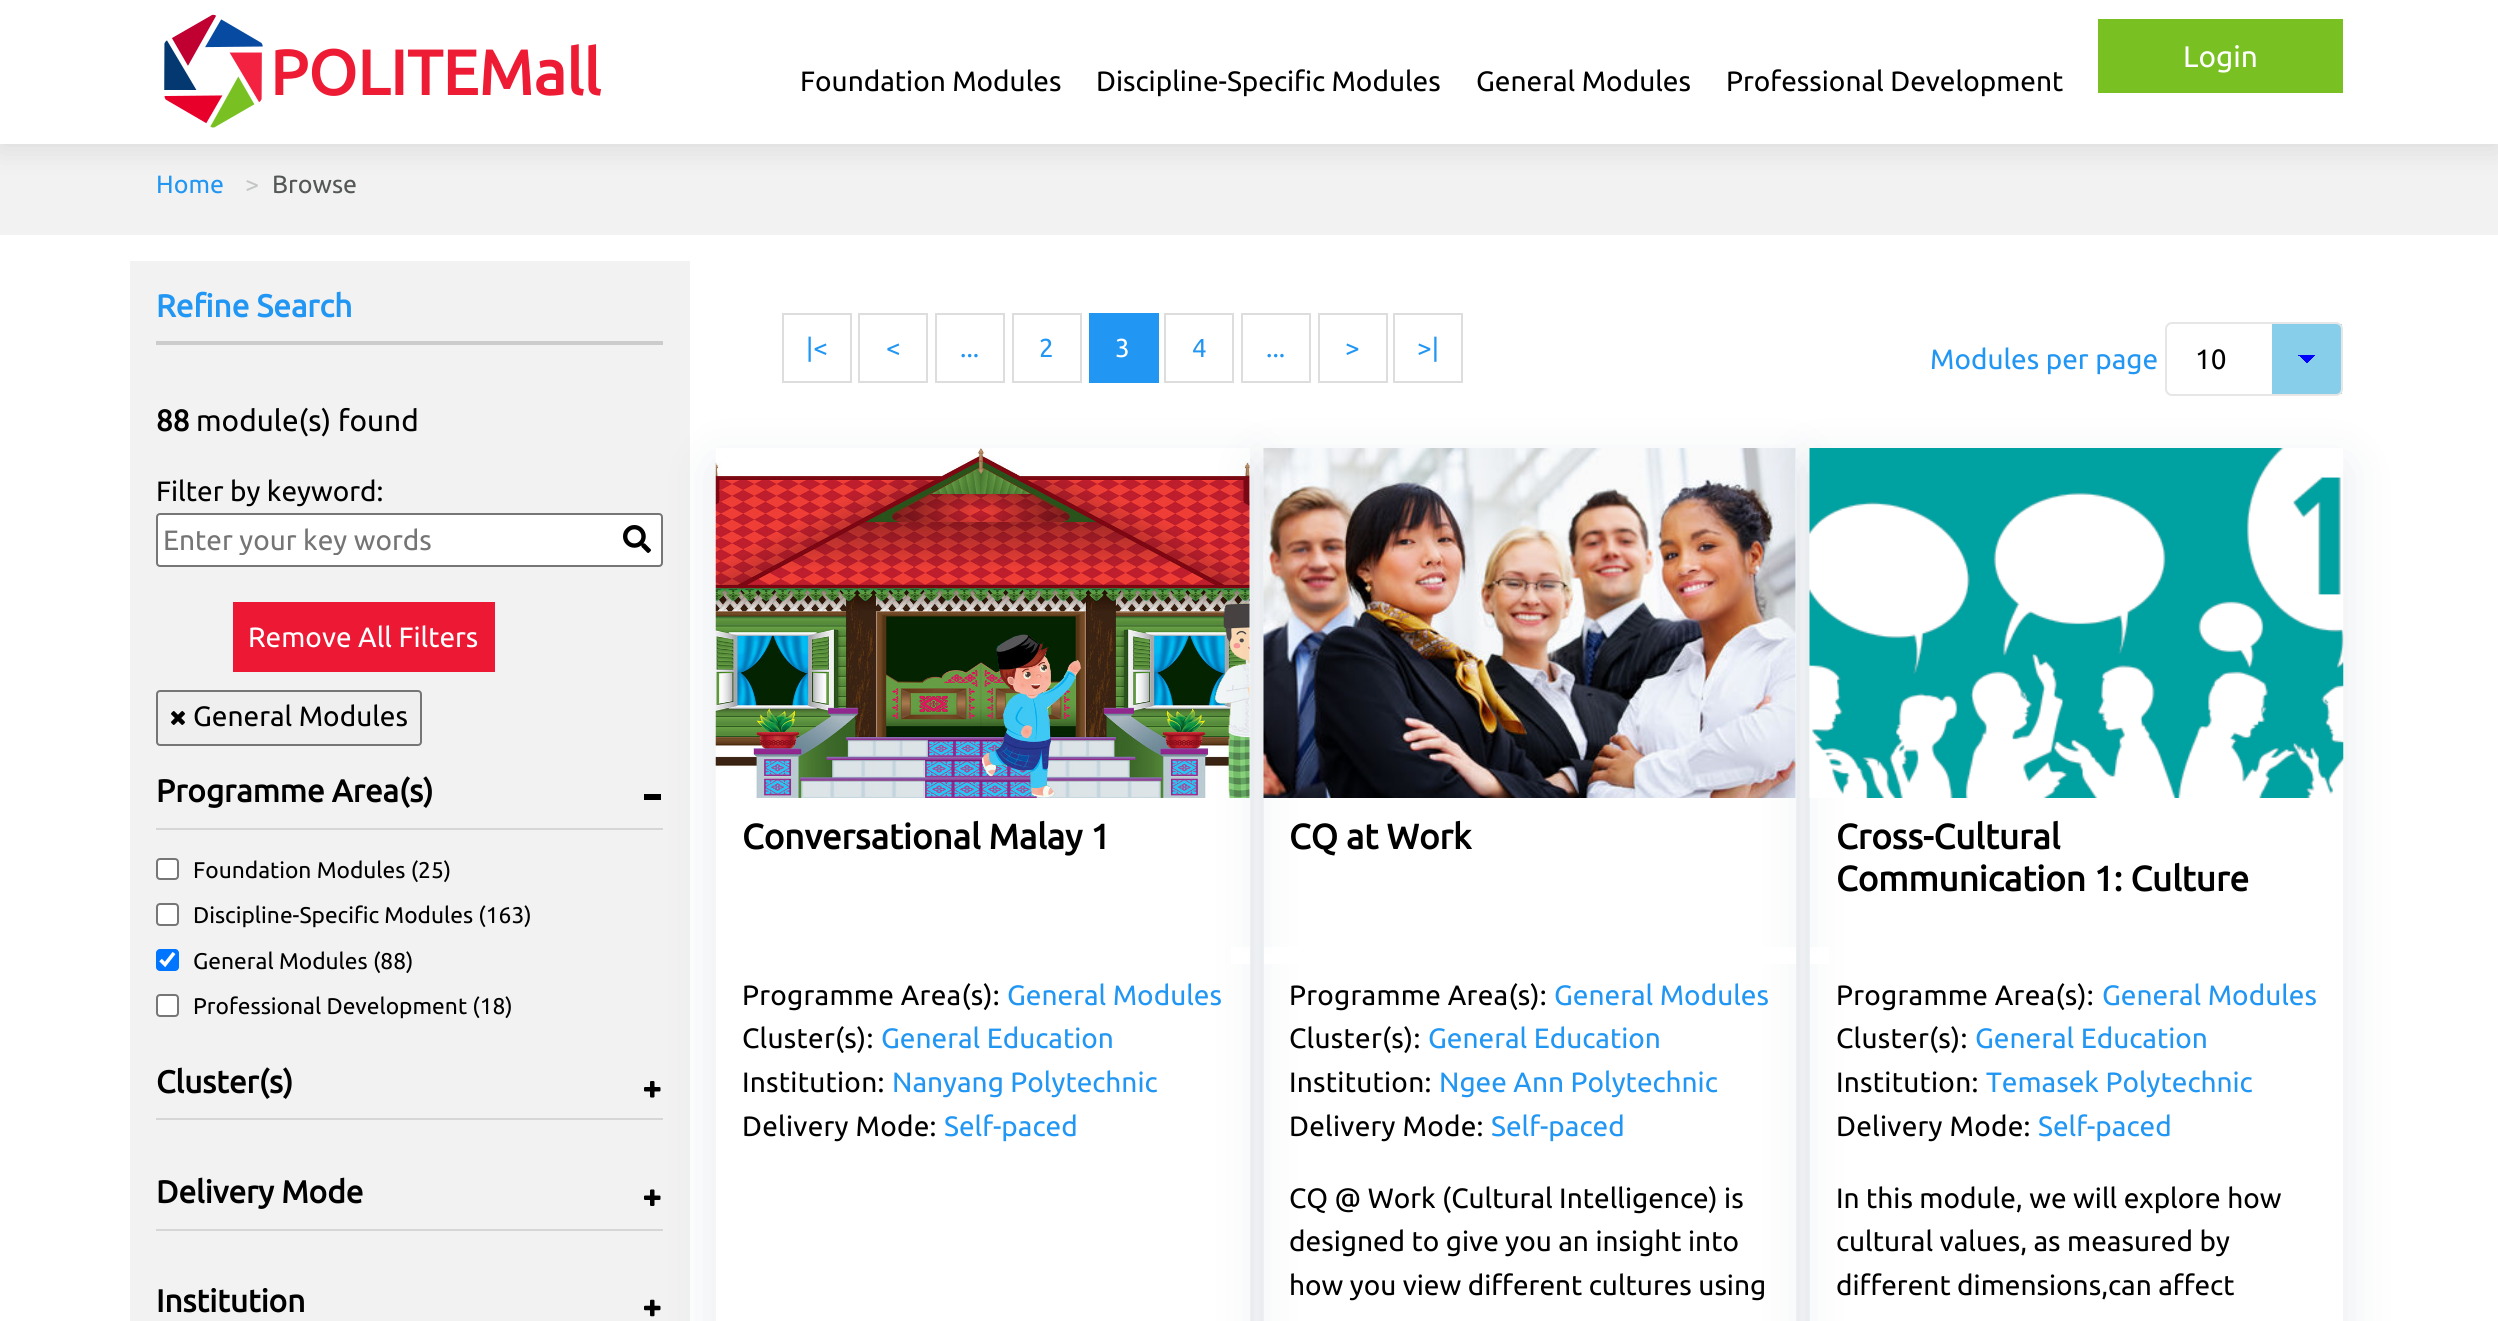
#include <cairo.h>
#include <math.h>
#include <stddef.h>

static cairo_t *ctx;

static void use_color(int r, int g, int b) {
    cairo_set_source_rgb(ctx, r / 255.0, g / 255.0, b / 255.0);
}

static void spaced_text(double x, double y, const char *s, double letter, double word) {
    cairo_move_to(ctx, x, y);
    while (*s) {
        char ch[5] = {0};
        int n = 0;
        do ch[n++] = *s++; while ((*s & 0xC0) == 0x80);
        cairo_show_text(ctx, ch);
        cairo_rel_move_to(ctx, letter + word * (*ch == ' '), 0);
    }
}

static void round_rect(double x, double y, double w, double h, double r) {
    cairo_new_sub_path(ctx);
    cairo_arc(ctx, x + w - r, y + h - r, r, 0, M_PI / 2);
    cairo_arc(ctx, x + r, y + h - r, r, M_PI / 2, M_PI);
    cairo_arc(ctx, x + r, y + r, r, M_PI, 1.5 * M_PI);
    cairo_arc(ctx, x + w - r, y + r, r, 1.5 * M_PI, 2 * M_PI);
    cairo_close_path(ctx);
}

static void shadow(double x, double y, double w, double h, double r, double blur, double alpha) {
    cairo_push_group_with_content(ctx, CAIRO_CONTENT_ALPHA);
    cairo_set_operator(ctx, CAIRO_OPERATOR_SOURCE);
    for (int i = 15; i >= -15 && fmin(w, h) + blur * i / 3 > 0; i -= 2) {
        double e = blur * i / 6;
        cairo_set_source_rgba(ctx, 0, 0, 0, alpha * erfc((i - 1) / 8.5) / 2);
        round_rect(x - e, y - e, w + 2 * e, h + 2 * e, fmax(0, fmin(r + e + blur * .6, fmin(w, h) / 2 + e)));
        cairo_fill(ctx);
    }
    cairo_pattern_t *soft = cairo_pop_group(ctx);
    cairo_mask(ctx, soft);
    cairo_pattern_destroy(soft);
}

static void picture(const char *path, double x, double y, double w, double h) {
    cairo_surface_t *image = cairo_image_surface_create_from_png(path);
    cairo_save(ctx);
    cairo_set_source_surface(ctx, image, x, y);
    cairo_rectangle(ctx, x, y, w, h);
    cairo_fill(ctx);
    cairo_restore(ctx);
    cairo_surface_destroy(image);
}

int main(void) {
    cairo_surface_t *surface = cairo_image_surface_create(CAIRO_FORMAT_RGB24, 2498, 1321);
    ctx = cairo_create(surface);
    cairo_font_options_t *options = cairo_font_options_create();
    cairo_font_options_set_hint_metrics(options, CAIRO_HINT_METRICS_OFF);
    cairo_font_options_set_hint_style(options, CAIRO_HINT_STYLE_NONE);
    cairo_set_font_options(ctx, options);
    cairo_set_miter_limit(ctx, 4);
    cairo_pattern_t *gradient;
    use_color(255, 255, 255);
    cairo_paint(ctx);
    use_color(242, 242, 242);
    cairo_rectangle(ctx, 0, 144, 2498, 91);
    cairo_fill(ctx);
    use_color(0, 0, 0);
    shadow(0, 5, 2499, 144, 0, 14, 0.1);
    use_color(255, 255, 255);
    cairo_rectangle(ctx, 0, 0, 2498, 144);
    cairo_fill(ctx);
    picture("img1.png", 164, 14, 99, 114);
    cairo_select_font_face(ctx, "Ubuntu", CAIRO_FONT_SLANT_NORMAL, CAIRO_FONT_WEIGHT_BOLD);
    cairo_set_font_size(ctx, 63);
    use_color(237, 27, 52);
    cairo_move_to(ctx, 270, 95);
    cairo_show_text(ctx, "POLITEMall");
    use_color(121, 193, 35);
    cairo_rectangle(ctx, 2098, 19, 245, 74);
    cairo_fill(ctx);
    cairo_select_font_face(ctx, "Ubuntu", CAIRO_FONT_SLANT_NORMAL, CAIRO_FONT_WEIGHT_NORMAL);
    cairo_set_font_size(ctx, 29.75);
    use_color(255, 255, 255);
    cairo_move_to(ctx, 2183, 67);
    cairo_show_text(ctx, "Login");
    cairo_set_font_size(ctx, 28);
    use_color(0, 0, 0);
    cairo_move_to(ctx, 800, 91);
    cairo_show_text(ctx, "Foundation Modules");
    cairo_move_to(ctx, 1096, 91);
    cairo_show_text(ctx, "Discipline-Specific Modules");
    cairo_move_to(ctx, 1476, 91);
    cairo_show_text(ctx, "General Modules");
    cairo_move_to(ctx, 1726, 91);
    cairo_show_text(ctx, "Professional Development");
    cairo_set_font_size(ctx, 25);
    use_color(33, 150, 243);
    cairo_move_to(ctx, 156, 193);
    cairo_show_text(ctx, "Home");
    use_color(196, 199, 198);
    cairo_move_to(ctx, 245, 193);
    cairo_show_text(ctx, ">");
    use_color(83, 87, 87);
    cairo_move_to(ctx, 272, 193);
    cairo_show_text(ctx, "Browse");
    use_color(242, 242, 242);
    cairo_rectangle(ctx, 130, 261, 560, 1060);
    cairo_fill(ctx);
    use_color(204, 204, 204);
    cairo_rectangle(ctx, 156, 341, 507, 4);
    cairo_fill(ctx);
    cairo_select_font_face(ctx, "Ubuntu", CAIRO_FONT_SLANT_NORMAL, CAIRO_FONT_WEIGHT_BOLD);
    cairo_set_font_size(ctx, 31.5);
    use_color(33, 150, 243);
    cairo_move_to(ctx, 156, 317);
    cairo_show_text(ctx, "Refine Search");
    cairo_set_font_size(ctx, 29.75);
    use_color(0, 0, 0);
    cairo_move_to(ctx, 156, 431);
    cairo_show_text(ctx, "88");
    cairo_select_font_face(ctx, "Ubuntu", CAIRO_FONT_SLANT_NORMAL, CAIRO_FONT_WEIGHT_NORMAL);
    cairo_move_to(ctx, 196, 431);
    cairo_show_text(ctx, "module(s) found");
    cairo_set_font_size(ctx, 28);
    cairo_move_to(ctx, 156, 501);
    cairo_show_text(ctx, "Filter by keyword:");
    use_color(255, 255, 255);
    round_rect(157, 514, 505, 52, 3);
    cairo_fill_preserve(ctx);
    use_color(118, 118, 118);
    cairo_stroke(ctx);
    cairo_save(ctx);
    cairo_rectangle(ctx, 163, 523, 493, 32);
    cairo_clip(ctx);
    use_color(117, 117, 117);
    cairo_move_to(ctx, 163, 550);
    cairo_show_text(ctx, "Enter your key words");
    cairo_restore(ctx);
    picture("img2.png", 623, 525, 28, 28);
    use_color(237, 24, 52);
    cairo_rectangle(ctx, 233, 602, 262, 70);
    cairo_fill(ctx);
    use_color(255, 255, 255);
    cairo_move_to(ctx, 248, 647);
    cairo_show_text(ctx, "Remove All Filters");
    use_color(239, 239, 239);
    round_rect(157, 691, 264, 54, 3);
    cairo_fill_preserve(ctx);
    use_color(118, 118, 118);
    cairo_stroke(ctx);
    picture("img3.png", 171, 711, 14, 14);
    use_color(0, 0, 0);
    cairo_move_to(ctx, 193, 726);
    cairo_show_text(ctx, "General Modules");
    use_color(214, 214, 214);
    cairo_rectangle(ctx, 156, 828, 507, 2);
    cairo_fill(ctx);
    cairo_select_font_face(ctx, "Ubuntu", CAIRO_FONT_SLANT_NORMAL, CAIRO_FONT_WEIGHT_BOLD);
    cairo_set_font_size(ctx, 31.5);
    use_color(0, 0, 0);
    cairo_move_to(ctx, 156, 802);
    cairo_show_text(ctx, "Programme Area(s)");
    cairo_rectangle(ctx, 644, 794, 17, 6);
    cairo_fill(ctx);
    use_color(255, 255, 255);
    round_rect(157, 859, 21, 20, 3);
    cairo_fill_preserve(ctx);
    use_color(118, 118, 118);
    cairo_stroke(ctx);
    cairo_select_font_face(ctx, "Ubuntu", CAIRO_FONT_SLANT_NORMAL, CAIRO_FONT_WEIGHT_NORMAL);
    cairo_set_font_size(ctx, 22.75);
    use_color(0, 0, 0);
    cairo_move_to(ctx, 193, 878);
    cairo_show_text(ctx, "Foundation Modules (25)");
    use_color(255, 255, 255);
    round_rect(157, 904, 21, 21, 3);
    cairo_fill_preserve(ctx);
    use_color(118, 118, 118);
    cairo_stroke(ctx);
    use_color(0, 0, 0);
    cairo_move_to(ctx, 193, 923);
    cairo_show_text(ctx, "Discipline-Specific Modules (163)");
    use_color(0, 117, 255);
    round_rect(156, 949, 23, 22, 4);
    cairo_fill(ctx);
    cairo_new_path(ctx);
    cairo_move_to(ctx, 160.5, 960);
    cairo_line_to(ctx, 165, 964.5);
    cairo_line_to(ctx, 174, 953);
    use_color(255, 255, 255);
    cairo_set_line_width(ctx, 3.6);
    cairo_stroke(ctx);
    use_color(0, 0, 0);
    cairo_move_to(ctx, 193, 969);
    cairo_show_text(ctx, "General Modules (88)");
    use_color(255, 255, 255);
    round_rect(157, 995, 21, 21, 3);
    cairo_fill_preserve(ctx);
    use_color(118, 118, 118);
    cairo_set_line_width(ctx, 2);
    cairo_stroke(ctx);
    use_color(0, 0, 0);
    cairo_move_to(ctx, 193, 1014);
    cairo_show_text(ctx, "Professional Development (18)");
    use_color(214, 214, 214);
    cairo_rectangle(ctx, 156, 1118, 507, 2);
    cairo_fill(ctx);
    cairo_select_font_face(ctx, "Ubuntu", CAIRO_FONT_SLANT_NORMAL, CAIRO_FONT_WEIGHT_BOLD);
    cairo_set_font_size(ctx, 31.5);
    use_color(0, 0, 0);
    cairo_move_to(ctx, 156, 1093);
    cairo_show_text(ctx, "Cluster(s)");
    picture("img4.png", 644, 1081, 17, 17);
    use_color(214, 214, 214);
    cairo_rectangle(ctx, 156, 1229, 507, 2);
    cairo_fill(ctx);
    use_color(0, 0, 0);
    cairo_move_to(ctx, 156, 1203);
    cairo_show_text(ctx, "Delivery Mode");
    picture("img5.png", 644, 1189, 17, 17);
    cairo_move_to(ctx, 156, 1312);
    cairo_show_text(ctx, "Institution");
    picture("img6.png", 644, 1299, 17, 18);
    cairo_rectangle(ctx, 783, 314, 68, 68);
    use_color(221, 221, 221);
    cairo_stroke(ctx);
    cairo_select_font_face(ctx, "Ubuntu", CAIRO_FONT_SLANT_NORMAL, CAIRO_FONT_WEIGHT_NORMAL);
    cairo_set_font_size(ctx, 26);
    use_color(33, 150, 243);
    cairo_move_to(ctx, 806, 357);
    cairo_show_text(ctx, "|<");
    cairo_rectangle(ctx, 859, 314, 68, 68);
    use_color(221, 221, 221);
    cairo_stroke(ctx);
    use_color(33, 150, 243);
    cairo_move_to(ctx, 886, 357);
    cairo_show_text(ctx, "<");
    cairo_rectangle(ctx, 1013, 314, 68, 68);
    use_color(221, 221, 221);
    cairo_stroke(ctx);
    use_color(33, 150, 243);
    cairo_move_to(ctx, 1039, 357);
    cairo_show_text(ctx, "2");
    cairo_rectangle(ctx, 1089, 313, 70, 70);
    cairo_fill(ctx);
    use_color(255, 255, 255);
    cairo_move_to(ctx, 1115, 357);
    cairo_show_text(ctx, "3");
    cairo_rectangle(ctx, 1165, 314, 68, 68);
    use_color(221, 221, 221);
    cairo_stroke(ctx);
    use_color(33, 150, 243);
    cairo_move_to(ctx, 1192, 357);
    cairo_show_text(ctx, "4");
    cairo_rectangle(ctx, 1319, 314, 68, 68);
    use_color(221, 221, 221);
    cairo_stroke(ctx);
    use_color(33, 150, 243);
    cairo_move_to(ctx, 1345, 357);
    cairo_show_text(ctx, ">");
    cairo_rectangle(ctx, 1394, 314, 68, 68);
    use_color(221, 221, 221);
    cairo_stroke(ctx);
    use_color(33, 150, 243);
    cairo_move_to(ctx, 1417, 357);
    cairo_show_text(ctx, ">|");
    cairo_rectangle(ctx, 936, 314, 68, 68);
    use_color(221, 221, 221);
    cairo_stroke(ctx);
    use_color(33, 150, 243);
    cairo_move_to(ctx, 960, 357);
    cairo_show_text(ctx, "...");
    cairo_rectangle(ctx, 1242, 314, 68, 68);
    use_color(221, 221, 221);
    cairo_stroke(ctx);
    use_color(33, 150, 243);
    cairo_move_to(ctx, 1266, 357);
    cairo_show_text(ctx, "...");
    cairo_set_font_size(ctx, 28);
    cairo_move_to(ctx, 1930, 369);
    cairo_show_text(ctx, "Modules per page");
    use_color(135, 206, 235);
    cairo_rectangle(ctx, 2272, 324, 70, 70);
    cairo_fill(ctx);
    gradient = cairo_pattern_create_linear(2307, 355, 2315, 364);
    cairo_pattern_add_color_stop_rgba(gradient, 0.5, 0, 0, 1, 1);
    cairo_pattern_add_color_stop_rgba(gradient, 0.5, 0.529, 0.808, 0.922, 1);
    cairo_set_source(ctx, gradient);
    cairo_pattern_destroy(gradient);
    cairo_rectangle(ctx, 2307, 355, 8, 9);
    cairo_fill(ctx);
    gradient = cairo_pattern_create_linear(2298, 364, 2307, 355);
    cairo_pattern_add_color_stop_rgba(gradient, 0.5, 0.529, 0.808, 0.922, 1);
    cairo_pattern_add_color_stop_rgba(gradient, 0.5, 0, 0, 1, 1);
    cairo_set_source(ctx, gradient);
    cairo_pattern_destroy(gradient);
    cairo_rectangle(ctx, 2298, 355, 9, 8);
    cairo_fill(ctx);
    round_rect(2166, 323, 176, 72, 6);
    use_color(230, 230, 230);
    cairo_stroke(ctx);
    use_color(0, 0, 0);
    cairo_move_to(ctx, 2195, 369);
    cairo_show_text(ctx, "10");
    cairo_save(ctx);
    cairo_set_fill_rule(ctx, CAIRO_FILL_RULE_EVEN_ODD);
    cairo_new_path(ctx);
    cairo_move_to(ctx, 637, 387);
    cairo_line_to(ctx, 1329, 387);
    cairo_line_to(ctx, 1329, 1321);
    cairo_line_to(ctx, 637, 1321);
    cairo_close_path(ctx);
    cairo_move_to(ctx, 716, 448);
    cairo_line_to(ctx, 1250, 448);
    cairo_line_to(ctx, 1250, 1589);
    cairo_line_to(ctx, 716, 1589);
    cairo_close_path(ctx);
    cairo_clip(ctx);
    use_color(0, 35, 71);
    shadow(716, 466, 534, 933, 0, 26, 0.1);
    cairo_restore(ctx);
    picture("img7.png", 715, 448, 535, 350);
    cairo_select_font_face(ctx, "Ubuntu", CAIRO_FONT_SLANT_NORMAL, CAIRO_FONT_WEIGHT_BOLD);
    cairo_set_font_size(ctx, 35);
    cairo_move_to(ctx, 742, 849);
    cairo_show_text(ctx, "Conversational Malay 1");
    cairo_save(ctx);
    cairo_set_fill_rule(ctx, CAIRO_FILL_RULE_EVEN_ODD);
    cairo_new_path(ctx);
    cairo_move_to(ctx, 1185, 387);
    cairo_line_to(ctx, 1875, 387);
    cairo_line_to(ctx, 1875, 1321);
    cairo_line_to(ctx, 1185, 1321);
    cairo_close_path(ctx);
    cairo_move_to(ctx, 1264, 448);
    cairo_line_to(ctx, 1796, 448);
    cairo_line_to(ctx, 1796, 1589);
    cairo_line_to(ctx, 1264, 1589);
    cairo_close_path(ctx);
    cairo_clip(ctx);
    use_color(0, 35, 71);
    shadow(1264, 466, 532, 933, 0, 26, 0.1);
    cairo_restore(ctx);
    gradient = cairo_pattern_create_linear(983, 947, 983, 964);
    cairo_pattern_add_color_stop_rgba(gradient, 0, 1, 1, 1, 0.85);
    cairo_pattern_add_color_stop_rgba(gradient, 1, 1, 1, 1, 1);
    cairo_set_source(ctx, gradient);
    cairo_pattern_destroy(gradient);
    cairo_rectangle(ctx, 1231, 947, 19, 17);
    cairo_fill(ctx);
    cairo_select_font_face(ctx, "Ubuntu", CAIRO_FONT_SLANT_NORMAL, CAIRO_FONT_WEIGHT_NORMAL);
    cairo_set_font_size(ctx, 28);
    use_color(0, 0, 0);
    spaced_text(742, 1005, "Programme Area(s):", 0.25, 0);
    use_color(33, 150, 243);
    cairo_move_to(ctx, 1007, 1005);
    cairo_show_text(ctx, "General Modules");
    use_color(0, 0, 0);
    spaced_text(742, 1048, "Cluster(s):", 0.25, 0);
    use_color(33, 150, 243);
    cairo_move_to(ctx, 881, 1048);
    cairo_show_text(ctx, "General Education");
    use_color(0, 0, 0);
    spaced_text(742, 1092, "Institution:", 0.25, 0);
    use_color(33, 150, 243);
    cairo_move_to(ctx, 892, 1092);
    cairo_show_text(ctx, "Nanyang Polytechnic");
    use_color(0, 0, 0);
    spaced_text(742, 1136, "Delivery Mode:", 0.25, 0);
    use_color(33, 150, 243);
    cairo_move_to(ctx, 944, 1136);
    cairo_show_text(ctx, "Self-paced");
    picture("img8.png", 1263, 448, 533, 350);
    cairo_select_font_face(ctx, "Ubuntu", CAIRO_FONT_SLANT_NORMAL, CAIRO_FONT_WEIGHT_BOLD);
    cairo_set_font_size(ctx, 35);
    use_color(0, 0, 0);
    cairo_move_to(ctx, 1289, 849);
    cairo_show_text(ctx, "CQ at Work");
    cairo_save(ctx);
    cairo_set_fill_rule(ctx, CAIRO_FILL_RULE_EVEN_ODD);
    cairo_new_path(ctx);
    cairo_move_to(ctx, 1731, 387);
    cairo_line_to(ctx, 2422, 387);
    cairo_line_to(ctx, 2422, 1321);
    cairo_line_to(ctx, 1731, 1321);
    cairo_close_path(ctx);
    cairo_move_to(ctx, 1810, 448);
    cairo_line_to(ctx, 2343, 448);
    cairo_line_to(ctx, 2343, 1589);
    cairo_line_to(ctx, 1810, 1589);
    cairo_close_path(ctx);
    cairo_clip(ctx);
    use_color(0, 35, 71);
    shadow(1810, 466, 533, 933, 0, 26, 0.1);
    cairo_restore(ctx);
    gradient = cairo_pattern_create_linear(1530, 947, 1530, 964);
    cairo_pattern_add_color_stop_rgba(gradient, 0, 1, 1, 1, 0.85);
    cairo_pattern_add_color_stop_rgba(gradient, 1, 1, 1, 1, 1);
    cairo_set_source(ctx, gradient);
    cairo_pattern_destroy(gradient);
    cairo_rectangle(ctx, 1264, 947, 532, 17);
    cairo_fill(ctx);
    cairo_select_font_face(ctx, "Ubuntu", CAIRO_FONT_SLANT_NORMAL, CAIRO_FONT_WEIGHT_NORMAL);
    cairo_set_font_size(ctx, 28);
    use_color(0, 0, 0);
    spaced_text(1289, 1005, "Programme Area(s):", 0.25, 0);
    use_color(33, 150, 243);
    cairo_move_to(ctx, 1554, 1005);
    cairo_show_text(ctx, "General Modules");
    use_color(0, 0, 0);
    spaced_text(1289, 1048, "Cluster(s):", 0.25, 0);
    use_color(33, 150, 243);
    cairo_move_to(ctx, 1428, 1048);
    cairo_show_text(ctx, "General Education");
    use_color(0, 0, 0);
    spaced_text(1289, 1092, "Institution:", 0.25, 0);
    use_color(33, 150, 243);
    cairo_move_to(ctx, 1439, 1092);
    cairo_show_text(ctx, "Ngee Ann Polytechnic");
    use_color(0, 0, 0);
    spaced_text(1289, 1136, "Delivery Mode:", 0.25, 0);
    use_color(33, 150, 243);
    cairo_move_to(ctx, 1491, 1136);
    cairo_show_text(ctx, "Self-paced");
    use_color(0, 0, 0);
    cairo_move_to(ctx, 1289, 1208);
    cairo_show_text(ctx, "CQ @ Work (Cultural Intelligence) is");
    cairo_move_to(ctx, 1289, 1251);
    cairo_show_text(ctx, "designed to give you an insight into");
    cairo_move_to(ctx, 1289, 1295);
    cairo_show_text(ctx, "how you view different cultures using");
    picture("img9.png", 1809, 448, 535, 350);
    cairo_select_font_face(ctx, "Ubuntu", CAIRO_FONT_SLANT_NORMAL, CAIRO_FONT_WEIGHT_BOLD);
    cairo_set_font_size(ctx, 35);
    cairo_move_to(ctx, 1836, 849);
    cairo_show_text(ctx, "Cross-Cultural");
    cairo_move_to(ctx, 1836, 891);
    cairo_show_text(ctx, "Communication 1: Culture");
    gradient = cairo_pattern_create_linear(2076, 947, 2076, 964);
    cairo_pattern_add_color_stop_rgba(gradient, 0, 1, 1, 1, 0.85);
    cairo_pattern_add_color_stop_rgba(gradient, 1, 1, 1, 1, 1);
    cairo_set_source(ctx, gradient);
    cairo_pattern_destroy(gradient);
    cairo_rectangle(ctx, 1810, 947, 19, 17);
    cairo_fill(ctx);
    cairo_select_font_face(ctx, "Ubuntu", CAIRO_FONT_SLANT_NORMAL, CAIRO_FONT_WEIGHT_NORMAL);
    cairo_set_font_size(ctx, 28);
    use_color(0, 0, 0);
    spaced_text(1836, 1005, "Programme Area(s):", 0.25, 0);
    use_color(33, 150, 243);
    cairo_move_to(ctx, 2102, 1005);
    cairo_show_text(ctx, "General Modules");
    use_color(0, 0, 0);
    spaced_text(1836, 1048, "Cluster(s):", 0.25, 0);
    use_color(33, 150, 243);
    cairo_move_to(ctx, 1975, 1048);
    cairo_show_text(ctx, "General Education");
    use_color(0, 0, 0);
    spaced_text(1836, 1092, "Institution:", 0.25, 0);
    use_color(33, 150, 243);
    cairo_move_to(ctx, 1986, 1092);
    cairo_show_text(ctx, "Temasek Polytechnic");
    use_color(0, 0, 0);
    spaced_text(1836, 1136, "Delivery Mode:", 0.25, 0);
    use_color(33, 150, 243);
    cairo_move_to(ctx, 2038, 1136);
    cairo_show_text(ctx, "Self-paced");
    use_color(0, 0, 0);
    cairo_move_to(ctx, 1836, 1208);
    cairo_show_text(ctx, "In this module, we will explore how");
    cairo_move_to(ctx, 1836, 1251);
    cairo_show_text(ctx, "cultural values, as measured by");
    cairo_move_to(ctx, 1836, 1295);
    cairo_show_text(ctx, "different dimensions,can affect");
    cairo_surface_write_to_png(surface, "result.png");
    cairo_font_options_destroy(options);
    cairo_destroy(ctx);
    cairo_surface_destroy(surface);
    return 0;
}
